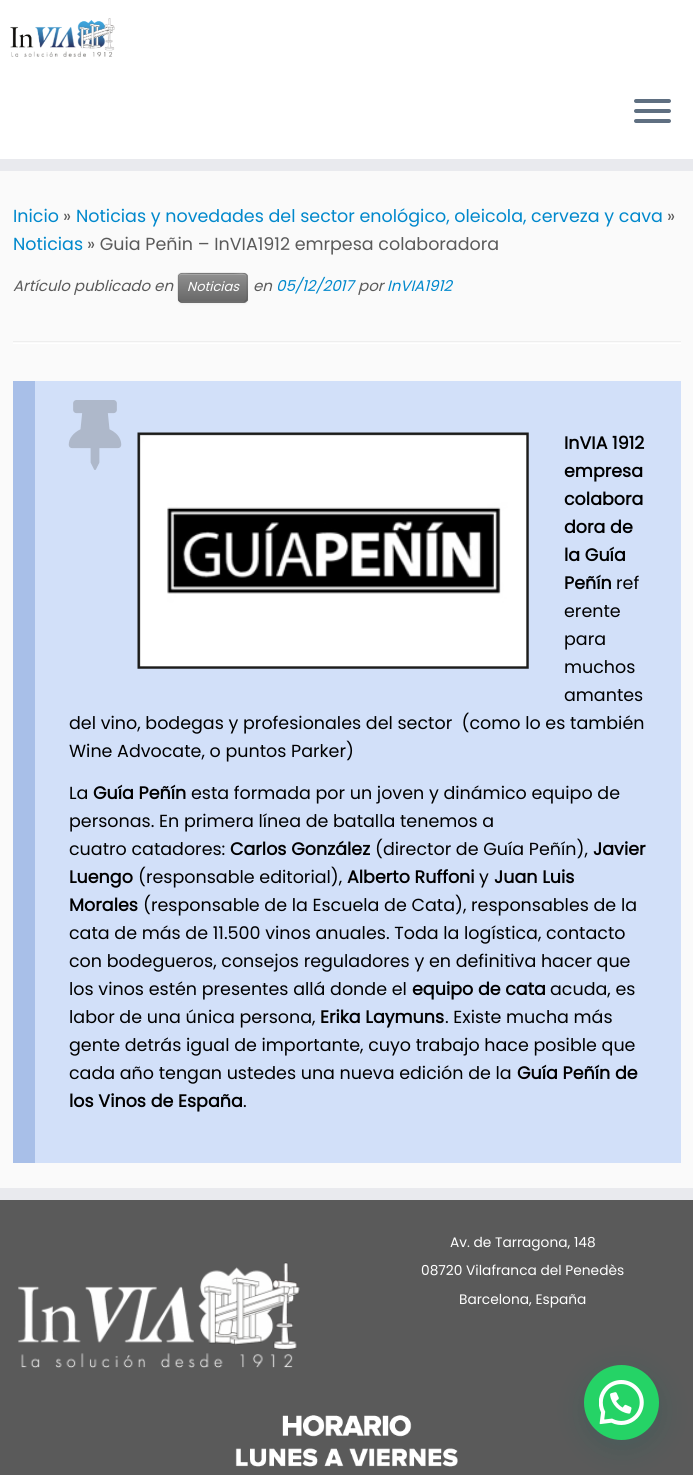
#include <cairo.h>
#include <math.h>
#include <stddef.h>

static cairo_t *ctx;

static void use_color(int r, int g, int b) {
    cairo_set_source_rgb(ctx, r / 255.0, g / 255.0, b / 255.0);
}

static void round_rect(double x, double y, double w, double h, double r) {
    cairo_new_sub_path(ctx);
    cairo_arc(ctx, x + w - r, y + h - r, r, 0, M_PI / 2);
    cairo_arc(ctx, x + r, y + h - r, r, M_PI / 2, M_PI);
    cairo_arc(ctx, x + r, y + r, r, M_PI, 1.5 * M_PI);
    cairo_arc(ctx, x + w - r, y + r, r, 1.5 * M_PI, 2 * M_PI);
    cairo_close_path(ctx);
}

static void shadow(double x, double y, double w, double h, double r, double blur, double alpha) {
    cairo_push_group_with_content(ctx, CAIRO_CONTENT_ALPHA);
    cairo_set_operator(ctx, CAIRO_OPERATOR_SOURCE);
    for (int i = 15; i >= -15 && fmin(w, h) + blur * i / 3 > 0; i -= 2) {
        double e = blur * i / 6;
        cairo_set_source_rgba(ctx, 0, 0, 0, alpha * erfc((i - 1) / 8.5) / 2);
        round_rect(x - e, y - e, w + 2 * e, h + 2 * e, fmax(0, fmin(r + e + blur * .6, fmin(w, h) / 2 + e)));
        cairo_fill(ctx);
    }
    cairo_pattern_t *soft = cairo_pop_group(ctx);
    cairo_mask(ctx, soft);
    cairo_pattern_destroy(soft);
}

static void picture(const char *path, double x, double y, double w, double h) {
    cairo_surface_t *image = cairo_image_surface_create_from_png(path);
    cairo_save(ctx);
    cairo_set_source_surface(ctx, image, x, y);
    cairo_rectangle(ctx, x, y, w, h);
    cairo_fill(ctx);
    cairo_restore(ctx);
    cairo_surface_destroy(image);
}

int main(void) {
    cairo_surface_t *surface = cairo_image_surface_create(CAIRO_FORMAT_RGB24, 693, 1475);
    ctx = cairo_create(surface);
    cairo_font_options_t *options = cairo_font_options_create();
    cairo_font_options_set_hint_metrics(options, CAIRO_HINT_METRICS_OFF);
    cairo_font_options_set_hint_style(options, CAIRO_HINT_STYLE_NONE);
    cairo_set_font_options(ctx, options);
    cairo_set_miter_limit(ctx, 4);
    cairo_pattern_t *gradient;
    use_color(250, 250, 250);
    cairo_paint(ctx);
    use_color(255, 255, 255);
    cairo_rectangle(ctx, 0, 0, 693, 159);
    cairo_fill(ctx);
    use_color(233, 234, 238);
    cairo_rectangle(ctx, 0, 159, 693, 12);
    cairo_fill(ctx);
    picture("img1.png", 10, 18, 105, 39);
    use_color(95, 111, 129);
    round_rect(634, 99, 37, 4, 2);
    cairo_fill(ctx);
    round_rect(634, 109, 37, 4, 2);
    cairo_fill(ctx);
    round_rect(634, 119, 37, 4, 2);
    cairo_fill(ctx);
    cairo_select_font_face(ctx, "Poppins", CAIRO_FONT_SLANT_NORMAL, CAIRO_FONT_WEIGHT_NORMAL);
    cairo_set_font_size(ctx, 17.5);
    use_color(0, 136, 204);
    cairo_move_to(ctx, 13, 222);
    cairo_show_text(ctx, "Inicio");
    use_color(90, 90, 90);
    cairo_move_to(ctx, 63, 222);
    cairo_show_text(ctx, "»");
    use_color(0, 136, 204);
    cairo_move_to(ctx, 76, 222);
    cairo_show_text(ctx, "Noticias y novedades del sector enológico, oleicola, cerveza y cava");
    use_color(90, 90, 90);
    cairo_move_to(ctx, 667, 222);
    cairo_show_text(ctx, "»");
    use_color(0, 136, 204);
    cairo_move_to(ctx, 13, 250);
    cairo_show_text(ctx, "Noticias");
    use_color(90, 90, 90);
    cairo_move_to(ctx, 87, 250);
    cairo_show_text(ctx, "» Guia Peñin – InVIA1912 emrpesa colaboradora");
    cairo_select_font_face(ctx, "Poppins", CAIRO_FONT_SLANT_ITALIC, CAIRO_FONT_WEIGHT_NORMAL);
    cairo_set_font_size(ctx, 15);
    cairo_move_to(ctx, 13, 291);
    cairo_show_text(ctx, "Artículo publicado en");
    use_color(0, 0, 0);
    shadow(178, 274, 70, 30, 4, 1, 0.05);
    use_color(128, 128, 128);
    round_rect(178, 273, 70, 30, 4);
    cairo_fill(ctx);
    cairo_save(ctx);
    round_rect(178, 273, 70, 30, 4);
    cairo_clip(ctx);
    gradient = cairo_pattern_create_linear(213, 274, 213, 301);
    cairo_pattern_add_color_stop_rgba(gradient, 0, 0.561, 0.561, 0.561, 1);
    cairo_pattern_add_color_stop_rgba(gradient, 1, 0.412, 0.412, 0.412, 1);
    cairo_set_source(ctx, gradient);
    cairo_pattern_destroy(gradient);
    cairo_rectangle(ctx, 178, 274, 70, 27);
    cairo_fill(ctx);
    cairo_restore(ctx);
    cairo_set_source_rgba(ctx, 1, 1, 1, 0.2);
    cairo_new_path(ctx);
    cairo_move_to(ctx, 181, 275);
    cairo_line_to(ctx, 244, 275);
    cairo_curve_to(ctx, 245, 275, 246, 276, 246, 278);
    cairo_curve_to(ctx, 246, 271, 239, 274, 233, 274);
    cairo_line_to(ctx, 192, 274);
    cairo_curve_to(ctx, 186, 274, 179, 271, 179, 278);
    cairo_curve_to(ctx, 179, 276, 180, 275, 181, 275);
    cairo_close_path(ctx);
    cairo_fill(ctx);
    cairo_new_path(ctx);
    cairo_move_to(ctx, 246, 301);
    cairo_line_to(ctx, 244, 302);
    cairo_line_to(ctx, 181, 302);
    cairo_line_to(ctx, 179, 301);
    cairo_set_source_rgba(ctx, 0, 0, 0, 0.25);
    cairo_set_line_width(ctx, 1.2);
    cairo_stroke(ctx);
    cairo_new_path(ctx);
    cairo_move_to(ctx, 179, 301);
    cairo_curve_to(ctx, 177, 299, 178, 290, 178, 287.5);
    cairo_curve_to(ctx, 178, 271.5, 175.5, 273, 191.5, 273);
    cairo_line_to(ctx, 233.5, 273);
    cairo_curve_to(ctx, 249.5, 273, 247, 271.5, 247, 287.5);
    cairo_curve_to(ctx, 247, 290, 248, 299, 246, 301);
    cairo_set_source_rgba(ctx, 0, 0, 0, 0.1);
    cairo_stroke(ctx);
    cairo_set_font_size(ctx, 13);
    use_color(255, 255, 255);
    cairo_move_to(ctx, 187, 291);
    cairo_show_text(ctx, "Noticias");
    cairo_set_font_size(ctx, 15);
    use_color(90, 90, 90);
    cairo_move_to(ctx, 253, 291);
    cairo_show_text(ctx, "en");
    use_color(0, 136, 204);
    cairo_move_to(ctx, 276, 291);
    cairo_show_text(ctx, "05/12/2017");
    use_color(90, 90, 90);
    cairo_move_to(ctx, 358, 291);
    cairo_show_text(ctx, "por");
    use_color(0, 136, 204);
    cairo_move_to(ctx, 387, 291);
    cairo_show_text(ctx, "InVIA1912");
    use_color(238, 238, 238);
    cairo_rectangle(ctx, 13, 341, 668, 1);
    cairo_fill(ctx);
    use_color(255, 255, 255);
    cairo_rectangle(ctx, 13, 343, 668, 1);
    cairo_fill(ctx);
    use_color(210, 224, 249);
    cairo_rectangle(ctx, 35, 381, 646, 782);
    cairo_fill(ctx);
    use_color(168, 191, 232);
    cairo_rectangle(ctx, 13, 381, 22, 782);
    cairo_fill(ctx);
    picture("img2.png", 68, 400, 54, 70);
    picture("img3.png", 137, 432, 392, 237);
    cairo_select_font_face(ctx, "Poppins", CAIRO_FONT_SLANT_NORMAL, CAIRO_FONT_WEIGHT_BOLD);
    cairo_set_font_size(ctx, 17.5);
    use_color(0, 0, 0);
    cairo_move_to(ctx, 564, 449);
    cairo_show_text(ctx, "InVIA 1912");
    cairo_move_to(ctx, 564, 477);
    cairo_show_text(ctx, "empresa");
    cairo_move_to(ctx, 564, 505);
    cairo_show_text(ctx, "colabora");
    cairo_move_to(ctx, 564, 533);
    cairo_show_text(ctx, "dora de");
    cairo_move_to(ctx, 564, 561);
    cairo_show_text(ctx, "la Guía");
    cairo_move_to(ctx, 564, 589);
    cairo_show_text(ctx, "Peñín");
    cairo_select_font_face(ctx, "Poppins", CAIRO_FONT_SLANT_NORMAL, CAIRO_FONT_WEIGHT_NORMAL);
    cairo_move_to(ctx, 616, 589);
    cairo_show_text(ctx, "ref");
    cairo_move_to(ctx, 564, 617);
    cairo_show_text(ctx, "erente");
    cairo_move_to(ctx, 564, 645);
    cairo_show_text(ctx, "para");
    cairo_move_to(ctx, 564, 673);
    cairo_show_text(ctx, "muchos");
    cairo_move_to(ctx, 564, 701);
    cairo_show_text(ctx, "amantes");
    cairo_move_to(ctx, 69, 729);
    cairo_show_text(ctx, "del vino, bodegas y profesionales del sector  (como lo es también");
    cairo_move_to(ctx, 69, 757);
    cairo_show_text(ctx, "Wine Advocate, o puntos Parker)");
    cairo_move_to(ctx, 69, 799);
    cairo_show_text(ctx, "La");
    cairo_select_font_face(ctx, "Poppins", CAIRO_FONT_SLANT_NORMAL, CAIRO_FONT_WEIGHT_BOLD);
    cairo_move_to(ctx, 93, 799);
    cairo_show_text(ctx, "Guía Peñín");
    cairo_select_font_face(ctx, "Poppins", CAIRO_FONT_SLANT_NORMAL, CAIRO_FONT_WEIGHT_NORMAL);
    cairo_move_to(ctx, 191, 799);
    cairo_show_text(ctx, "esta formada por un joven y dinámico equipo de");
    cairo_move_to(ctx, 69, 827);
    cairo_show_text(ctx, "personas. En primera línea de batalla tenemos a");
    cairo_move_to(ctx, 69, 855);
    cairo_show_text(ctx, "cuatro catadores:");
    cairo_select_font_face(ctx, "Poppins", CAIRO_FONT_SLANT_NORMAL, CAIRO_FONT_WEIGHT_BOLD);
    cairo_move_to(ctx, 230, 855);
    cairo_show_text(ctx, "Carlos González");
    cairo_select_font_face(ctx, "Poppins", CAIRO_FONT_SLANT_NORMAL, CAIRO_FONT_WEIGHT_NORMAL);
    cairo_move_to(ctx, 375, 855);
    cairo_show_text(ctx, "(director de Guía Peñín),");
    cairo_select_font_face(ctx, "Poppins", CAIRO_FONT_SLANT_NORMAL, CAIRO_FONT_WEIGHT_BOLD);
    cairo_move_to(ctx, 593, 855);
    cairo_show_text(ctx, "Javier");
    cairo_move_to(ctx, 69, 883);
    cairo_show_text(ctx, "Luengo");
    cairo_select_font_face(ctx, "Poppins", CAIRO_FONT_SLANT_NORMAL, CAIRO_FONT_WEIGHT_NORMAL);
    cairo_move_to(ctx, 138, 883);
    cairo_show_text(ctx, "(responsable editorial),");
    cairo_select_font_face(ctx, "Poppins", CAIRO_FONT_SLANT_NORMAL, CAIRO_FONT_WEIGHT_BOLD);
    cairo_move_to(ctx, 347, 883);
    cairo_show_text(ctx, "Alberto Ruffoni");
    cairo_select_font_face(ctx, "Poppins", CAIRO_FONT_SLANT_NORMAL, CAIRO_FONT_WEIGHT_NORMAL);
    cairo_move_to(ctx, 479, 883);
    cairo_show_text(ctx, "y");
    cairo_select_font_face(ctx, "Poppins", CAIRO_FONT_SLANT_NORMAL, CAIRO_FONT_WEIGHT_BOLD);
    cairo_move_to(ctx, 494, 883);
    cairo_show_text(ctx, "Juan Luis");
    cairo_move_to(ctx, 69, 911);
    cairo_show_text(ctx, "Morales");
    cairo_select_font_face(ctx, "Poppins", CAIRO_FONT_SLANT_NORMAL, CAIRO_FONT_WEIGHT_NORMAL);
    cairo_move_to(ctx, 143, 911);
    cairo_show_text(ctx, "(responsable de la Escuela de Cata), responsables de la");
    cairo_move_to(ctx, 69, 939);
    cairo_show_text(ctx, "cata de más de 11.500 vinos anuales. Toda la logística, contacto");
    cairo_move_to(ctx, 69, 967);
    cairo_show_text(ctx, "con bodegueros, consejos reguladores y en definitiva hacer que");
    cairo_move_to(ctx, 69, 995);
    cairo_show_text(ctx, "los vinos estén presentes allá donde el");
    cairo_select_font_face(ctx, "Poppins", CAIRO_FONT_SLANT_NORMAL, CAIRO_FONT_WEIGHT_BOLD);
    cairo_move_to(ctx, 412, 995);
    cairo_show_text(ctx, "equipo de cata");
    cairo_select_font_face(ctx, "Poppins", CAIRO_FONT_SLANT_NORMAL, CAIRO_FONT_WEIGHT_NORMAL);
    cairo_move_to(ctx, 550, 995);
    cairo_show_text(ctx, "acuda, es");
    cairo_move_to(ctx, 69, 1023);
    cairo_show_text(ctx, "labor de una única persona,");
    cairo_select_font_face(ctx, "Poppins", CAIRO_FONT_SLANT_NORMAL, CAIRO_FONT_WEIGHT_BOLD);
    cairo_move_to(ctx, 320, 1023);
    cairo_show_text(ctx, "Erika Laymuns");
    cairo_select_font_face(ctx, "Poppins", CAIRO_FONT_SLANT_NORMAL, CAIRO_FONT_WEIGHT_NORMAL);
    cairo_move_to(ctx, 445, 1023);
    cairo_show_text(ctx, ". Existe mucha más");
    cairo_move_to(ctx, 69, 1051);
    cairo_show_text(ctx, "gente detrás igual de importante, cuyo trabajo hace posible que");
    cairo_move_to(ctx, 69, 1079);
    cairo_show_text(ctx, "cada año tengan ustedes una nueva edición de la");
    cairo_select_font_face(ctx, "Poppins", CAIRO_FONT_SLANT_NORMAL, CAIRO_FONT_WEIGHT_BOLD);
    cairo_move_to(ctx, 517, 1079);
    cairo_show_text(ctx, "Guía Peñín de");
    cairo_move_to(ctx, 69, 1107);
    cairo_show_text(ctx, "los Vinos de España");
    cairo_select_font_face(ctx, "Poppins", CAIRO_FONT_SLANT_NORMAL, CAIRO_FONT_WEIGHT_NORMAL);
    cairo_move_to(ctx, 243, 1107);
    cairo_show_text(ctx, ".");
    use_color(90, 90, 90);
    cairo_rectangle(ctx, 0, 1200, 693, 275);
    cairo_fill(ctx);
    use_color(233, 234, 238);
    cairo_rectangle(ctx, 0, 1188, 693, 12);
    cairo_fill(ctx);
    picture("img4.png", 18, 1262, 282, 106);
    cairo_set_font_size(ctx, 13.75);
    use_color(255, 255, 255);
    cairo_move_to(ctx, 450, 1247);
    cairo_show_text(ctx, "Av. de Tarragona, 148");
    cairo_move_to(ctx, 421, 1275);
    cairo_show_text(ctx, "08720 Vilafranca del Penedès");
    cairo_move_to(ctx, 459, 1304);
    cairo_show_text(ctx, "Barcelona, España");
    picture("img5.png", 235, 1415, 223, 52);
    use_color(7, 94, 84);
    shadow(585, 1373, 75, 75, 37.5, 15, 0.24);
    use_color(37, 211, 102);
    cairo_arc(ctx, 621.5, 1402.5, 37.5, 0, 2 * M_PI);
    cairo_fill(ctx);
    picture("img6.png", 599, 1380, 45, 45);
    cairo_surface_write_to_png(surface, "result.png");
    cairo_font_options_destroy(options);
    cairo_destroy(ctx);
    cairo_surface_destroy(surface);
    return 0;
}
